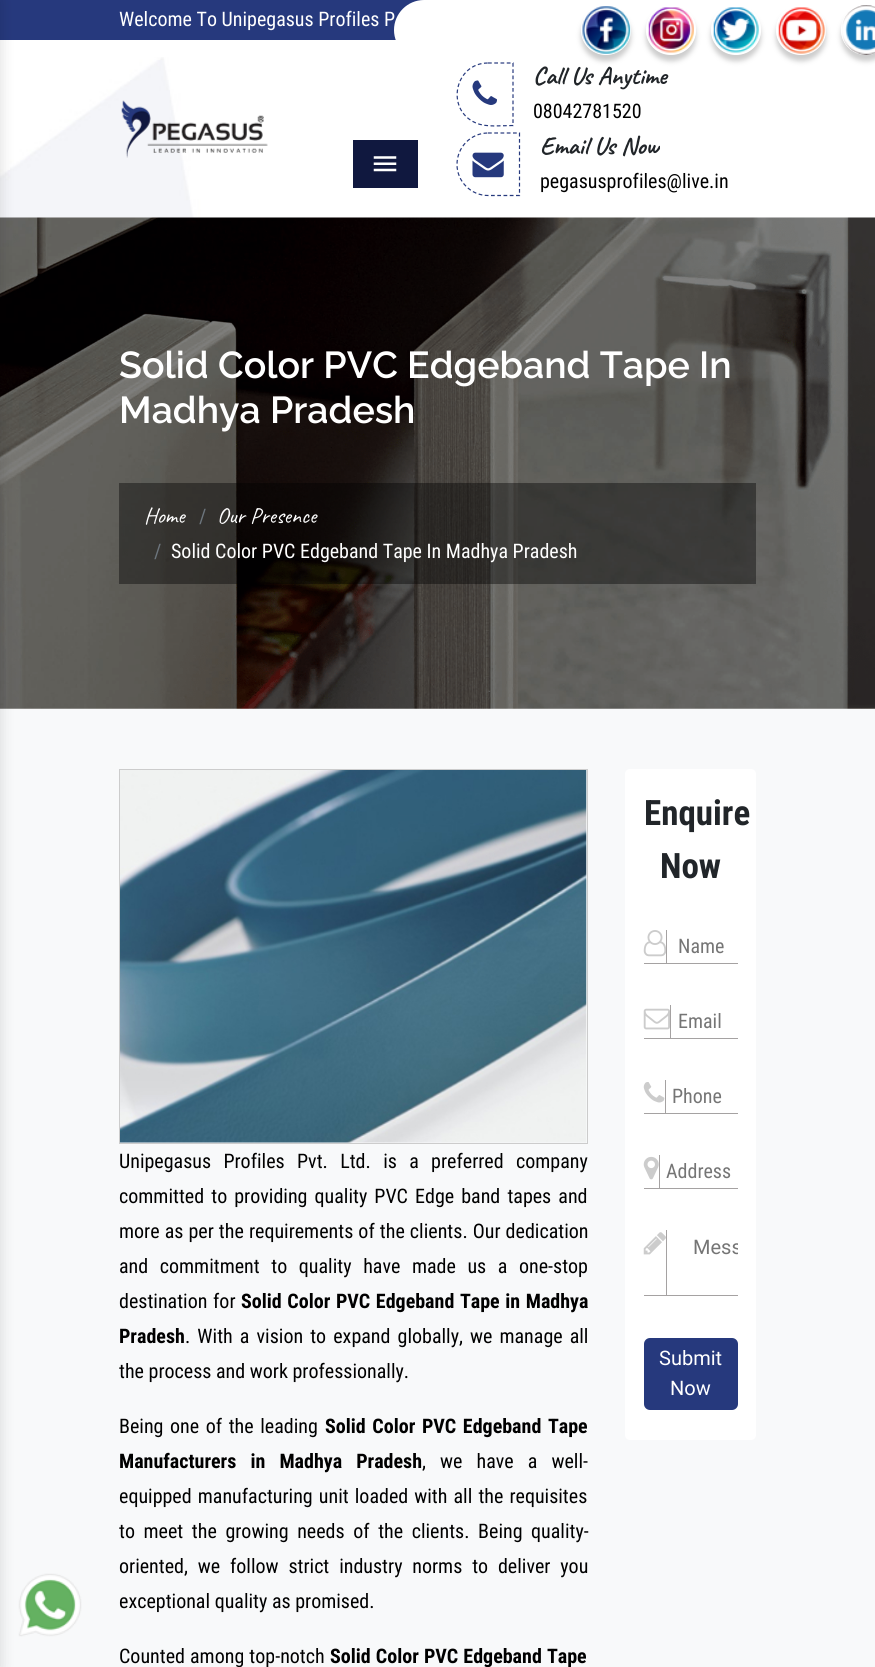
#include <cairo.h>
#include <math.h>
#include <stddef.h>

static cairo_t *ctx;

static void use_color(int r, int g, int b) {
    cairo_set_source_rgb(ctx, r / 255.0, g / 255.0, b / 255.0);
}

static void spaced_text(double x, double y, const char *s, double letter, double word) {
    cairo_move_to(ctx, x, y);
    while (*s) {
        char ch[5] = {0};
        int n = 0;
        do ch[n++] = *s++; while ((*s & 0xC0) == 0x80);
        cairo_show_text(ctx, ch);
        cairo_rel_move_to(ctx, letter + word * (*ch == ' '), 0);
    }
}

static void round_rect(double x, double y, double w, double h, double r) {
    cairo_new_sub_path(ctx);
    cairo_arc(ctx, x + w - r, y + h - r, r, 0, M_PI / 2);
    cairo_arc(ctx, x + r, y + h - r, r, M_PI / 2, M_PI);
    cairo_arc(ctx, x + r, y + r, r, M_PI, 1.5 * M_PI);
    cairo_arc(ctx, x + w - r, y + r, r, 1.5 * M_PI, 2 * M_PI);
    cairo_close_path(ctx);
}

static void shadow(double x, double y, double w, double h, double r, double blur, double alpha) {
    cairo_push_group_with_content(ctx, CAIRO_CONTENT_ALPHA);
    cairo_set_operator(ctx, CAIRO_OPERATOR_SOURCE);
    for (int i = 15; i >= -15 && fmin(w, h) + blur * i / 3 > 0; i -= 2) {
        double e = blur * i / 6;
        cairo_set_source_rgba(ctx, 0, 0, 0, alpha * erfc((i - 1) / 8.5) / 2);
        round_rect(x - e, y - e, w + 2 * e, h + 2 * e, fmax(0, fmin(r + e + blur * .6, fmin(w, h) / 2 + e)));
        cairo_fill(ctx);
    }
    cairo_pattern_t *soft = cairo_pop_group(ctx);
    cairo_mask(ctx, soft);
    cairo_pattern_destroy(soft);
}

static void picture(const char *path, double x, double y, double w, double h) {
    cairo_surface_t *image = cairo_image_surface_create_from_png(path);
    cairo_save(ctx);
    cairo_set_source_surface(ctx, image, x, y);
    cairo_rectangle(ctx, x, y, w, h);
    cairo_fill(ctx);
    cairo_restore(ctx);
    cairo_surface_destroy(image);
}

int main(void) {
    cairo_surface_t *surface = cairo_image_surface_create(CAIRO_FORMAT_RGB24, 875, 1667);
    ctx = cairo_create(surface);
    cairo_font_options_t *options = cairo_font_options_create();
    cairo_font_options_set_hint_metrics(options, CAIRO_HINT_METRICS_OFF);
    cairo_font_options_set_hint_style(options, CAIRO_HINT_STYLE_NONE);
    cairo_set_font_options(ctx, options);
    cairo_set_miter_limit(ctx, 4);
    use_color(255, 255, 255);
    cairo_paint(ctx);
    picture("img1.png", 0, 57, 660, 652);
    use_color(248, 249, 250);
    cairo_rectangle(ctx, 0, 709, 875, 958);
    cairo_fill(ctx);
    picture("img2.png", 18, 1573, 64, 64);
    use_color(38, 57, 125);
    cairo_rectangle(ctx, 0, 0, 424, 40);
    cairo_fill(ctx);
    picture("img12.png", 0, 217, 875, 492);
    use_color(0, 0, 0);
    shadow(-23, 0, 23, 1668, 0, 7.5, 0.14);
    cairo_select_font_face(ctx, "Roboto Condensed", CAIRO_FONT_SLANT_NORMAL, CAIRO_FONT_WEIGHT_NORMAL);
    cairo_set_font_size(ctx, 20);
    use_color(255, 255, 255);
    cairo_move_to(ctx, 119, 26);
    cairo_show_text(ctx, "Welcome To Unipegasus Profiles P");
    cairo_new_path(ctx);
    cairo_move_to(ctx, 424, 0);
    cairo_line_to(ctx, 875, 0);
    cairo_line_to(ctx, 875, 60);
    cairo_line_to(ctx, 424, 60);
    cairo_curve_to(ctx, 407.5, 60, 394, 46.5, 394, 30);
    cairo_curve_to(ctx, 394, 13.5, 407.5, 0, 424, 0);
    cairo_close_path(ctx);
    cairo_fill(ctx);
    cairo_save(ctx);
    cairo_set_fill_rule(ctx, CAIRO_FILL_RULE_EVEN_ODD);
    cairo_new_path(ctx);
    cairo_move_to(ctx, 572, 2);
    cairo_line_to(ctx, 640, 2);
    cairo_line_to(ctx, 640, 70);
    cairo_line_to(ctx, 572, 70);
    cairo_close_path(ctx);
    cairo_move_to(ctx, 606, 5);
    cairo_curve_to(ctx, 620, 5, 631, 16, 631, 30);
    cairo_curve_to(ctx, 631, 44, 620, 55, 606, 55);
    cairo_curve_to(ctx, 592, 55, 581, 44, 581, 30);
    cairo_curve_to(ctx, 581, 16, 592, 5, 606, 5);
    cairo_close_path(ctx);
    cairo_clip(ctx);
    use_color(204, 204, 204);
    shadow(581, 11, 50, 50, 25, 2.5, 1);
    cairo_restore(ctx);
    picture("img3.png", 582, 6, 49, 48);
    cairo_save(ctx);
    cairo_set_fill_rule(ctx, CAIRO_FILL_RULE_EVEN_ODD);
    cairo_new_path(ctx);
    cairo_move_to(ctx, 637, 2);
    cairo_line_to(ctx, 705, 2);
    cairo_line_to(ctx, 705, 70);
    cairo_line_to(ctx, 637, 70);
    cairo_close_path(ctx);
    cairo_move_to(ctx, 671, 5);
    cairo_curve_to(ctx, 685, 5, 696, 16, 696, 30);
    cairo_curve_to(ctx, 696, 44, 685, 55, 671, 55);
    cairo_curve_to(ctx, 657, 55, 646, 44, 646, 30);
    cairo_curve_to(ctx, 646, 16, 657, 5, 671, 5);
    cairo_close_path(ctx);
    cairo_clip(ctx);
    use_color(204, 204, 204);
    shadow(646, 11, 50, 50, 25, 2.5, 1);
    cairo_restore(ctx);
    picture("img4.png", 648, 7, 46, 46);
    cairo_save(ctx);
    cairo_set_fill_rule(ctx, CAIRO_FILL_RULE_EVEN_ODD);
    cairo_new_path(ctx);
    cairo_move_to(ctx, 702, 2);
    cairo_line_to(ctx, 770, 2);
    cairo_line_to(ctx, 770, 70);
    cairo_line_to(ctx, 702, 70);
    cairo_close_path(ctx);
    cairo_move_to(ctx, 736, 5);
    cairo_curve_to(ctx, 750, 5, 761, 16, 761, 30);
    cairo_curve_to(ctx, 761, 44, 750, 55, 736, 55);
    cairo_curve_to(ctx, 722, 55, 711, 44, 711, 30);
    cairo_curve_to(ctx, 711, 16, 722, 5, 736, 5);
    cairo_close_path(ctx);
    cairo_clip(ctx);
    use_color(204, 204, 204);
    shadow(711, 11, 50, 50, 25, 2.5, 1);
    cairo_restore(ctx);
    picture("img5.png", 713, 7, 46, 46);
    cairo_save(ctx);
    cairo_set_fill_rule(ctx, CAIRO_FILL_RULE_EVEN_ODD);
    cairo_new_path(ctx);
    cairo_move_to(ctx, 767, 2);
    cairo_line_to(ctx, 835, 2);
    cairo_line_to(ctx, 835, 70);
    cairo_line_to(ctx, 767, 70);
    cairo_close_path(ctx);
    cairo_move_to(ctx, 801, 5);
    cairo_curve_to(ctx, 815, 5, 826, 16, 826, 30);
    cairo_curve_to(ctx, 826, 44, 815, 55, 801, 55);
    cairo_curve_to(ctx, 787, 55, 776, 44, 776, 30);
    cairo_curve_to(ctx, 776, 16, 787, 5, 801, 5);
    cairo_close_path(ctx);
    cairo_clip(ctx);
    use_color(204, 204, 204);
    shadow(776, 11, 50, 50, 25, 2.5, 1);
    cairo_restore(ctx);
    picture("img6.png", 778, 7, 48, 47);
    cairo_save(ctx);
    cairo_set_fill_rule(ctx, CAIRO_FILL_RULE_EVEN_ODD);
    cairo_new_path(ctx);
    cairo_move_to(ctx, 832, 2);
    cairo_line_to(ctx, 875, 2);
    cairo_line_to(ctx, 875, 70);
    cairo_line_to(ctx, 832, 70);
    cairo_close_path(ctx);
    cairo_move_to(ctx, 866, 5);
    cairo_curve_to(ctx, 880, 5, 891, 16, 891, 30);
    cairo_curve_to(ctx, 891, 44, 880, 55, 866, 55);
    cairo_curve_to(ctx, 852, 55, 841, 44, 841, 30);
    cairo_curve_to(ctx, 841, 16, 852, 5, 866, 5);
    cairo_close_path(ctx);
    cairo_clip(ctx);
    use_color(204, 204, 204);
    shadow(841, 11, 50, 50, 25, 2.5, 1);
    cairo_restore(ctx);
    picture("img7.png", 842, 5, 33, 50);
    picture("img8.png", 121, 100, 147, 58);
    use_color(16, 24, 63);
    cairo_rectangle(ctx, 353, 140, 65, 48);
    cairo_fill(ctx);
    picture("img9.png", 373, 156, 24, 16);
    cairo_new_path(ctx);
    cairo_move_to(ctx, 488, 63);
    cairo_line_to(ctx, 513, 63);
    cairo_line_to(ctx, 513, 125.5);
    cairo_curve_to(ctx, 502, 125.5, 486, 127.5, 476, 123);
    cairo_curve_to(ctx, 445, 110, 454.5, 63, 488, 63);
    cairo_close_path(ctx);
    use_color(38, 57, 125);
    cairo_set_line_width(ctx, 1.2);
    cairo_set_dash(ctx, (double[]){3.75, 2.5}, 2, 0);
    cairo_stroke(ctx);
    picture("img10.png", 472, 80, 25, 25);
    cairo_select_font_face(ctx, "Caveat", CAIRO_FONT_SLANT_NORMAL, CAIRO_FONT_WEIGHT_BOLD);
    cairo_set_font_size(ctx, 25);
    use_color(33, 37, 41);
    cairo_move_to(ctx, 533, 84);
    cairo_show_text(ctx, "Call Us Anytime");
    cairo_select_font_face(ctx, "Roboto Condensed", CAIRO_FONT_SLANT_NORMAL, CAIRO_FONT_WEIGHT_NORMAL);
    cairo_set_font_size(ctx, 20);
    use_color(0, 0, 0);
    cairo_move_to(ctx, 533, 118);
    cairo_show_text(ctx, "08042781520");
    cairo_new_path(ctx);
    cairo_move_to(ctx, 488, 133);
    cairo_line_to(ctx, 519.5, 133);
    cairo_line_to(ctx, 519.5, 195.5);
    cairo_line_to(ctx, 488, 195.5);
    cairo_curve_to(ctx, 471, 195.5, 457, 181.5, 457, 164.5);
    cairo_curve_to(ctx, 457, 147, 471, 133, 488, 133);
    cairo_close_path(ctx);
    use_color(38, 57, 125);
    cairo_stroke(ctx);
    picture("img11.png", 472, 152, 32, 26);
    cairo_select_font_face(ctx, "Caveat", CAIRO_FONT_SLANT_NORMAL, CAIRO_FONT_WEIGHT_BOLD);
    cairo_set_font_size(ctx, 25);
    use_color(33, 37, 41);
    cairo_move_to(ctx, 540, 154);
    cairo_show_text(ctx, "Email Us Now");
    cairo_select_font_face(ctx, "Roboto Condensed", CAIRO_FONT_SLANT_NORMAL, CAIRO_FONT_WEIGHT_NORMAL);
    cairo_set_font_size(ctx, 20);
    use_color(0, 0, 0);
    cairo_move_to(ctx, 540, 188);
    cairo_show_text(ctx, "pegasusprofiles@live.in");
    cairo_select_font_face(ctx, "Raleway SemiBold", CAIRO_FONT_SLANT_NORMAL, CAIRO_FONT_WEIGHT_NORMAL);
    cairo_set_font_size(ctx, 37.5);
    use_color(255, 255, 255);
    cairo_move_to(ctx, 119, 378);
    cairo_show_text(ctx, "Solid Color PVC Edgeband Tape In");
    cairo_move_to(ctx, 119, 423);
    cairo_show_text(ctx, "Madhya Pradesh");
    cairo_set_source_rgba(ctx, 0, 0, 0, 0.4);
    cairo_rectangle(ctx, 119, 483, 637, 101);
    cairo_fill(ctx);
    cairo_select_font_face(ctx, "Caveat", CAIRO_FONT_SLANT_NORMAL, CAIRO_FONT_WEIGHT_NORMAL);
    cairo_set_font_size(ctx, 22.5);
    use_color(255, 255, 255);
    cairo_move_to(ctx, 144, 523);
    cairo_show_text(ctx, "Home");
    cairo_select_font_face(ctx, "Roboto Condensed", CAIRO_FONT_SLANT_NORMAL, CAIRO_FONT_WEIGHT_NORMAL);
    cairo_set_font_size(ctx, 20);
    use_color(108, 117, 125);
    cairo_move_to(ctx, 199, 523);
    cairo_show_text(ctx, "/");
    cairo_select_font_face(ctx, "Caveat", CAIRO_FONT_SLANT_NORMAL, CAIRO_FONT_WEIGHT_NORMAL);
    cairo_set_font_size(ctx, 22.5);
    use_color(255, 255, 255);
    cairo_move_to(ctx, 217, 523);
    cairo_show_text(ctx, "Our Presence");
    cairo_select_font_face(ctx, "Roboto Condensed", CAIRO_FONT_SLANT_NORMAL, CAIRO_FONT_WEIGHT_NORMAL);
    cairo_set_font_size(ctx, 20);
    use_color(108, 117, 125);
    cairo_move_to(ctx, 154, 558);
    cairo_show_text(ctx, "/");
    use_color(255, 255, 255);
    cairo_move_to(ctx, 171, 558);
    cairo_show_text(ctx, "Solid Color PVC Edgeband Tape In Madhya Pradesh");
    cairo_rectangle(ctx, 119.5, 769.5, 468, 374);
    use_color(204, 204, 204);
    cairo_set_line_width(ctx, 1);
    cairo_set_dash(ctx, NULL, 0, 0);
    cairo_stroke(ctx);
    picture("img13.png", 120, 770, 467, 373);
    use_color(0, 0, 0);
    spaced_text(119, 1168, "Unipegasus Profiles Pvt. Ltd. is a preferred company", 0, 7.75);
    spaced_text(119, 1203, "committed to providing quality PVC Edge band tapes and", 0, 2.5);
    spaced_text(119, 1238, "more as per the requirements of the clients. Our dedication", 0, 0.5);
    spaced_text(119, 1273, "and commitment to quality have made us a one-stop", 0, 7);
    spaced_text(119, 1308, "destination for", 0, 1);
    cairo_select_font_face(ctx, "Roboto Condensed", CAIRO_FONT_SLANT_NORMAL, CAIRO_FONT_WEIGHT_BOLD);
    spaced_text(241, 1308, "Solid Color PVC Edgeband Tape in Madhya", 0, 1);
    cairo_move_to(ctx, 119, 1343);
    cairo_show_text(ctx, "Pradesh");
    cairo_select_font_face(ctx, "Roboto Condensed", CAIRO_FONT_SLANT_NORMAL, CAIRO_FONT_WEIGHT_NORMAL);
    spaced_text(185, 1343, ". With a vision to expand globally, we manage all", 0, 2.5);
    cairo_move_to(ctx, 119, 1378);
    cairo_show_text(ctx, "the process and work professionally.");
    spaced_text(119, 1433, "Being one of the leading", 0, 2);
    cairo_select_font_face(ctx, "Roboto Condensed", CAIRO_FONT_SLANT_NORMAL, CAIRO_FONT_WEIGHT_BOLD);
    spaced_text(325, 1433, "Solid Color PVC Edgeband Tape", 0, 2);
    spaced_text(119, 1468, "Manufacturers in Madhya Pradesh", 0, 9.5);
    cairo_select_font_face(ctx, "Roboto Condensed", CAIRO_FONT_SLANT_NORMAL, CAIRO_FONT_WEIGHT_NORMAL);
    spaced_text(422, 1468, ", we have a well-", 0, 9.5);
    spaced_text(119, 1503, "equipped manufacturing unit loaded with all the requisites", 0, 1.5);
    spaced_text(119, 1538, "to meet the growing needs of the clients. Being quality-", 0, 4);
    spaced_text(119, 1573, "oriented, we follow strict industry norms to deliver you", 0, 5.25);
    cairo_move_to(ctx, 119, 1608);
    cairo_show_text(ctx, "exceptional quality as promised.");
    spaced_text(119, 1663, "Counted among top-notch", 0, 0.5);
    cairo_select_font_face(ctx, "Roboto Condensed", CAIRO_FONT_SLANT_NORMAL, CAIRO_FONT_WEIGHT_BOLD);
    spaced_text(330, 1663, "Solid Color PVC Edgeband Tape", 0, 0.5);
    use_color(255, 255, 255);
    round_rect(625, 769, 131, 671, 5);
    cairo_fill(ctx);
    cairo_set_font_size(ctx, 35);
    use_color(33, 37, 41);
    cairo_move_to(ctx, 644, 825);
    cairo_show_text(ctx, "Enquire");
    cairo_move_to(ctx, 660, 878);
    cairo_show_text(ctx, "Now");
    use_color(165, 162, 162);
    cairo_rectangle(ctx, 644, 963, 94, 1);
    cairo_fill(ctx);
    picture("img14.png", 643, 930, 23, 27);
    cairo_rectangle(ctx, 666, 930, 1, 33);
    cairo_fill(ctx);
    cairo_select_font_face(ctx, "Roboto Condensed", CAIRO_FONT_SLANT_NORMAL, CAIRO_FONT_WEIGHT_NORMAL);
    cairo_set_font_size(ctx, 20);
    use_color(117, 117, 117);
    cairo_move_to(ctx, 678, 953);
    cairo_show_text(ctx, "Name");
    use_color(165, 162, 162);
    cairo_rectangle(ctx, 644, 1038, 94, 1);
    cairo_fill(ctx);
    picture("img15.png", 643, 1008, 27, 22);
    cairo_rectangle(ctx, 670, 1005, 1, 33);
    cairo_fill(ctx);
    use_color(117, 117, 117);
    cairo_move_to(ctx, 678, 1028);
    cairo_show_text(ctx, "Email");
    use_color(165, 162, 162);
    cairo_rectangle(ctx, 644, 1113, 94, 1);
    cairo_fill(ctx);
    picture("img16.png", 643, 1082, 22, 21);
    cairo_rectangle(ctx, 665, 1080, 1, 33);
    cairo_fill(ctx);
    use_color(117, 117, 117);
    cairo_move_to(ctx, 672, 1103);
    cairo_show_text(ctx, "Phone");
    use_color(165, 162, 162);
    cairo_rectangle(ctx, 644, 1188, 94, 1);
    cairo_fill(ctx);
    picture("img17.png", 643, 1156, 16, 24);
    cairo_rectangle(ctx, 659, 1155, 1, 33);
    cairo_fill(ctx);
    use_color(117, 117, 117);
    cairo_move_to(ctx, 666, 1178);
    cairo_show_text(ctx, "Address");
    use_color(165, 162, 162);
    cairo_rectangle(ctx, 644, 1295, 94, 1);
    cairo_fill(ctx);
    picture("img18.png", 643, 1232, 23, 23);
    cairo_rectangle(ctx, 666, 1230, 1, 65);
    cairo_fill(ctx);
    cairo_save(ctx);
    cairo_rectangle(ctx, 668, 1230, 70, 65);
    cairo_clip(ctx);
    cairo_select_font_face(ctx, "Roboto", CAIRO_FONT_SLANT_NORMAL, CAIRO_FONT_WEIGHT_NORMAL);
    use_color(117, 117, 117);
    cairo_move_to(ctx, 693, 1254);
    cairo_show_text(ctx, "Mess");
    cairo_restore(ctx);
    use_color(38, 57, 125);
    round_rect(644, 1338, 94, 72, 6);
    cairo_fill(ctx);
    cairo_select_font_face(ctx, "Roboto", CAIRO_FONT_SLANT_NORMAL, CAIRO_FONT_WEIGHT_NORMAL);
    use_color(255, 255, 255);
    cairo_move_to(ctx, 659, 1365);
    cairo_show_text(ctx, "Submit");
    cairo_move_to(ctx, 670, 1395);
    cairo_show_text(ctx, "Now");
    cairo_surface_write_to_png(surface, "result.png");
    cairo_font_options_destroy(options);
    cairo_destroy(ctx);
    cairo_surface_destroy(surface);
    return 0;
}
